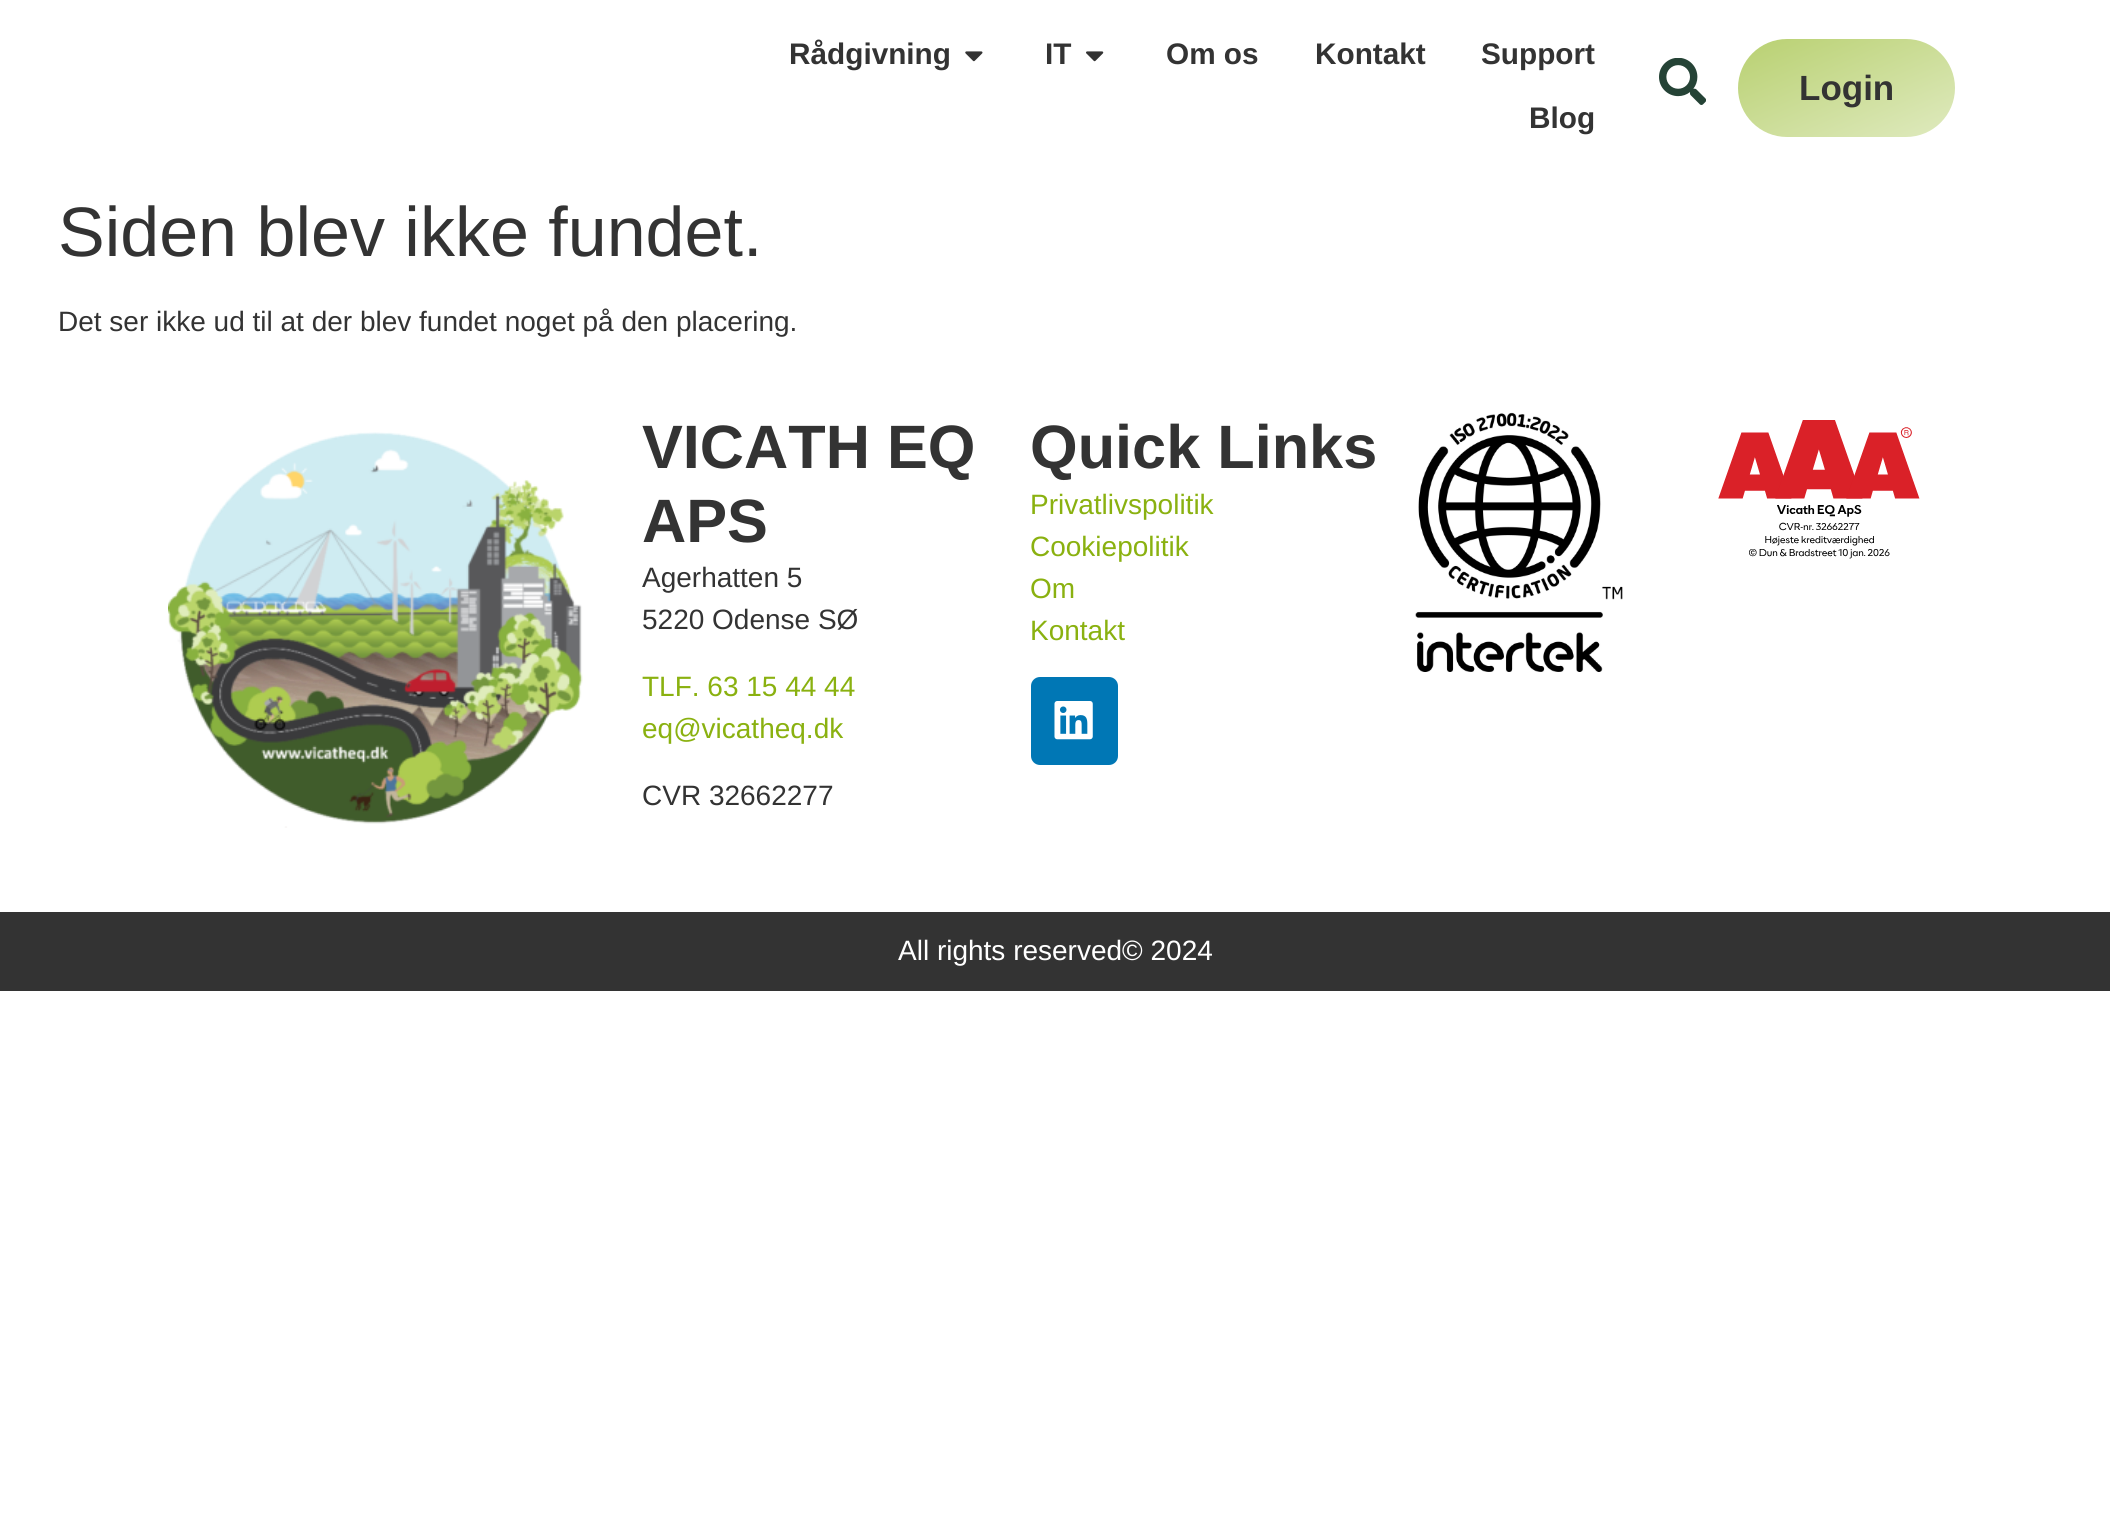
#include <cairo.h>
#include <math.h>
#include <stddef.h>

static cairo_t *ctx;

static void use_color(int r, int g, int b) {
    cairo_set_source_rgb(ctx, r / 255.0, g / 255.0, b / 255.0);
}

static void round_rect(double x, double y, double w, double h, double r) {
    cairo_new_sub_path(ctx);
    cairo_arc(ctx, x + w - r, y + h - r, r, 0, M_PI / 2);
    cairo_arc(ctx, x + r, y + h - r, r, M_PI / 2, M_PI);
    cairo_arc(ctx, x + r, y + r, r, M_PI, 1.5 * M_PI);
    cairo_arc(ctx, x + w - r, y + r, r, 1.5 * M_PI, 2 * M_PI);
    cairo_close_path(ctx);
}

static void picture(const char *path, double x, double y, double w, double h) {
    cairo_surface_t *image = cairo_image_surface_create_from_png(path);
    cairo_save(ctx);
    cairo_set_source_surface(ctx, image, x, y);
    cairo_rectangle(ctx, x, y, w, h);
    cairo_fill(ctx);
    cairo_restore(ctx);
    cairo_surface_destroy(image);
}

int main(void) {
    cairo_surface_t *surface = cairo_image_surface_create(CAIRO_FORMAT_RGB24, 2110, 1533);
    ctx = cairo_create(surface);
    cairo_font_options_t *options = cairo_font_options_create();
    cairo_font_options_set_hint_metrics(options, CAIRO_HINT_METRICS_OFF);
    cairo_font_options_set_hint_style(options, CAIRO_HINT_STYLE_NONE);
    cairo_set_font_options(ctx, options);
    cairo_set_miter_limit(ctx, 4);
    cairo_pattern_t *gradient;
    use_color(255, 255, 255);
    cairo_paint(ctx);
    cairo_select_font_face(ctx, "Liberation Sans", CAIRO_FONT_SLANT_NORMAL, CAIRO_FONT_WEIGHT_BOLD);
    cairo_set_font_size(ctx, 29.75);
    use_color(51, 51, 51);
    cairo_move_to(ctx, 789, 64);
    cairo_show_text(ctx, "Rådgivning");
    picture("img1.png", 965, 51, 18, 11);
    cairo_move_to(ctx, 1045, 64);
    cairo_show_text(ctx, "IT");
    picture("img2.png", 1086, 51, 18, 11);
    cairo_move_to(ctx, 1166, 64);
    cairo_show_text(ctx, "Om os");
    cairo_move_to(ctx, 1315, 64);
    cairo_show_text(ctx, "Kontakt");
    cairo_move_to(ctx, 1481, 64);
    cairo_show_text(ctx, "Support");
    cairo_move_to(ctx, 1529, 128);
    cairo_show_text(ctx, "Blog");
    picture("img3.png", 1659, 58, 47, 47);
    gradient = cairo_pattern_create_linear(1810, 6.3, 1882, 169);
    cairo_pattern_add_color_stop_rgba(gradient, 0, 0.722, 0.816, 0.439, 1);
    cairo_pattern_add_color_stop_rgba(gradient, 1, 0.875, 0.918, 0.749, 1);
    cairo_set_source(ctx, gradient);
    cairo_pattern_destroy(gradient);
    round_rect(1738, 39, 217, 98, 49);
    cairo_fill(ctx);
    cairo_set_font_size(ctx, 35);
    use_color(51, 51, 51);
    cairo_move_to(ctx, 1799, 100);
    cairo_show_text(ctx, "Login");
    cairo_select_font_face(ctx, "Liberation Sans", CAIRO_FONT_SLANT_NORMAL, CAIRO_FONT_WEIGHT_NORMAL);
    cairo_set_font_size(ctx, 70);
    cairo_move_to(ctx, 58, 256);
    cairo_show_text(ctx, "Siden blev ikke fundet.");
    cairo_set_font_size(ctx, 28);
    cairo_move_to(ctx, 58, 331);
    cairo_show_text(ctx, "Det ser ikke ud til at der blev fundet noget på den placering.");
    picture("img4.png", 168, 432, 415, 396);
    cairo_select_font_face(ctx, "Liberation Sans", CAIRO_FONT_SLANT_NORMAL, CAIRO_FONT_WEIGHT_BOLD);
    cairo_set_font_size(ctx, 61.25);
    cairo_move_to(ctx, 642, 468);
    cairo_show_text(ctx, "VICATH EQ");
    cairo_move_to(ctx, 642, 542);
    cairo_show_text(ctx, "APS");
    cairo_select_font_face(ctx, "Liberation Sans", CAIRO_FONT_SLANT_NORMAL, CAIRO_FONT_WEIGHT_NORMAL);
    cairo_set_font_size(ctx, 28);
    cairo_move_to(ctx, 642, 587);
    cairo_show_text(ctx, "Agerhatten 5");
    cairo_move_to(ctx, 642, 629);
    cairo_show_text(ctx, "5220 Odense SØ");
    use_color(138, 177, 16);
    cairo_move_to(ctx, 642, 696);
    cairo_show_text(ctx, "TLF. 63 15 44 44");
    cairo_move_to(ctx, 642, 738);
    cairo_show_text(ctx, "eq@vicatheq.dk");
    use_color(51, 51, 51);
    cairo_move_to(ctx, 642, 805);
    cairo_show_text(ctx, "CVR 32662277");
    cairo_select_font_face(ctx, "Liberation Sans", CAIRO_FONT_SLANT_NORMAL, CAIRO_FONT_WEIGHT_BOLD);
    cairo_set_font_size(ctx, 61.25);
    cairo_move_to(ctx, 1030, 468);
    cairo_show_text(ctx, "Quick Links");
    cairo_select_font_face(ctx, "Liberation Sans", CAIRO_FONT_SLANT_NORMAL, CAIRO_FONT_WEIGHT_NORMAL);
    cairo_set_font_size(ctx, 28);
    use_color(138, 177, 16);
    cairo_move_to(ctx, 1030, 514);
    cairo_show_text(ctx, "Privatlivspolitik");
    cairo_move_to(ctx, 1030, 556);
    cairo_show_text(ctx, "Cookiepolitik");
    cairo_move_to(ctx, 1030, 598);
    cairo_show_text(ctx, "Om");
    cairo_move_to(ctx, 1030, 640);
    cairo_show_text(ctx, "Kontakt");
    use_color(0, 119, 181);
    round_rect(1031, 677, 87, 88, 9);
    cairo_fill(ctx);
    picture("img5.png", 1054, 701, 39, 39);
    picture("img6.png", 1415, 412, 208, 260);
    picture("img7.png", 1718, 420, 202, 139);
    use_color(51, 51, 51);
    cairo_rectangle(ctx, 0, 912, 2110, 79);
    cairo_fill(ctx);
    use_color(255, 255, 255);
    cairo_move_to(ctx, 898, 960);
    cairo_show_text(ctx, "All rights reserved© 2024");
    cairo_surface_write_to_png(surface, "result.png");
    cairo_font_options_destroy(options);
    cairo_destroy(ctx);
    cairo_surface_destroy(surface);
    return 0;
}
